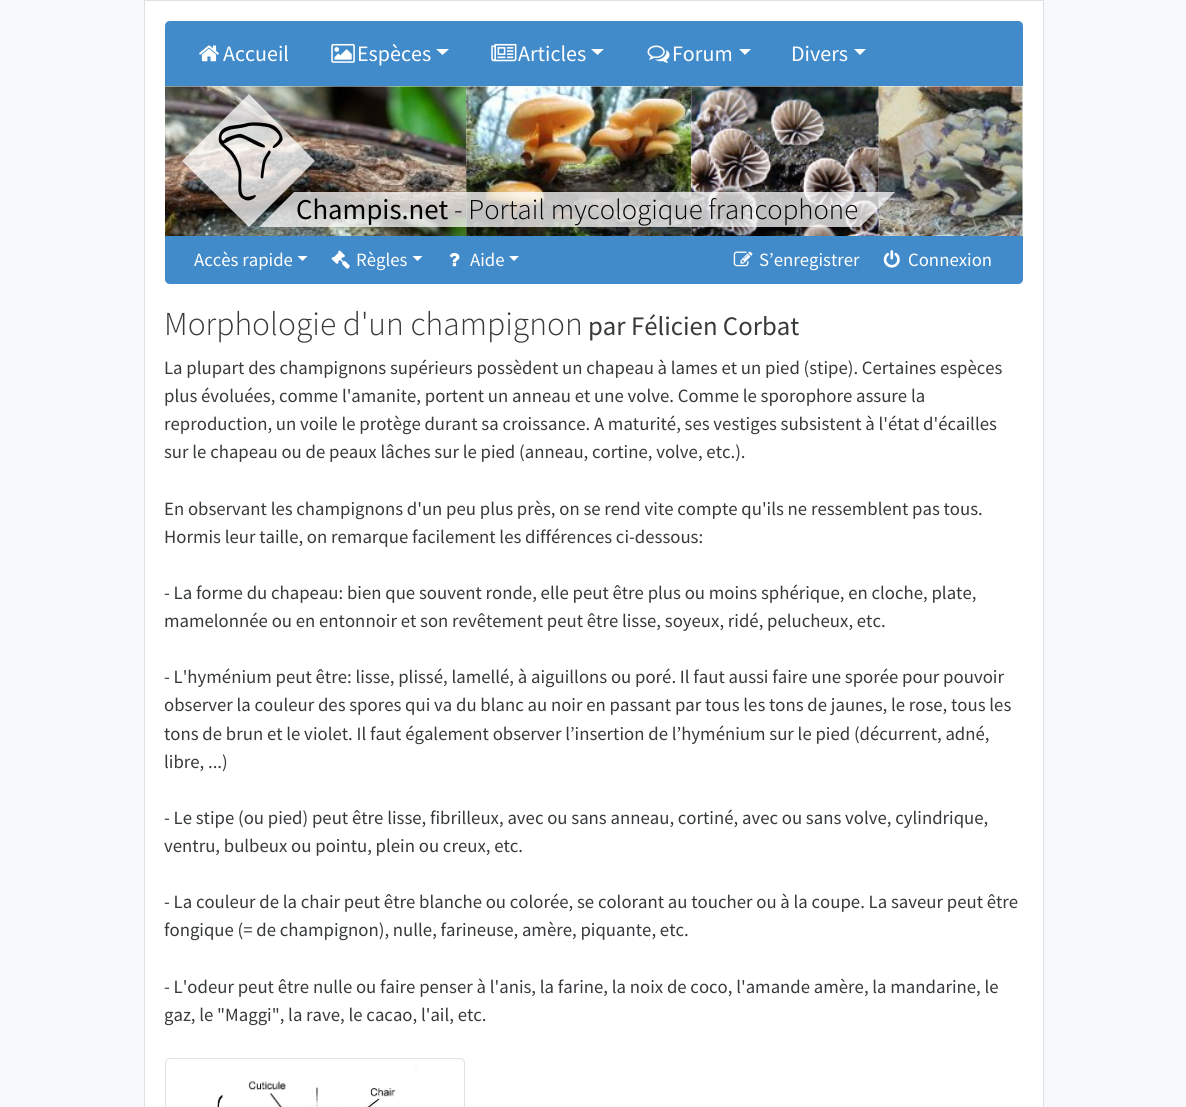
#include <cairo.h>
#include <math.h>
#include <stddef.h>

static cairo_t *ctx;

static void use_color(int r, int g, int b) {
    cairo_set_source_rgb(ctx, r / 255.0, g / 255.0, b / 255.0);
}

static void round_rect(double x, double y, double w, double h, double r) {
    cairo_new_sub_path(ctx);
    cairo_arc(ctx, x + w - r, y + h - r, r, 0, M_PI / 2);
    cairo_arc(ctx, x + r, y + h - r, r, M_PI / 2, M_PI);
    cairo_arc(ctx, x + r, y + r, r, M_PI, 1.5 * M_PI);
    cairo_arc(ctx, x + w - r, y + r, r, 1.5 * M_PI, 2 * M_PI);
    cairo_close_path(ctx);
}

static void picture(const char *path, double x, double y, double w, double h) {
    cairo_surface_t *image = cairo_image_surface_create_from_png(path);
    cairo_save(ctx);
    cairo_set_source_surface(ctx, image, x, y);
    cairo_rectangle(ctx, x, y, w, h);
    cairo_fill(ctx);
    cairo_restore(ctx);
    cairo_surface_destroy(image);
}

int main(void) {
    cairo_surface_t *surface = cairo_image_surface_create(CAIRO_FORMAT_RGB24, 1186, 1107);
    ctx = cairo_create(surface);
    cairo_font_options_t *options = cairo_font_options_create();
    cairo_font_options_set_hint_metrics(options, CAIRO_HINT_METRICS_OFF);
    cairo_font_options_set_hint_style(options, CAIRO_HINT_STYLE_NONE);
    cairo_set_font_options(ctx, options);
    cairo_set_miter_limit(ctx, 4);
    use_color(248, 249, 250);
    cairo_paint(ctx);
    use_color(255, 255, 255);
    cairo_rectangle(ctx, 144.5, 0.5, 899, 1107);
    cairo_fill_preserve(ctx);
    use_color(222, 226, 230);
    cairo_set_line_width(ctx, 1);
    cairo_stroke(ctx);
    use_color(66, 139, 202);
    cairo_new_path(ctx);
    cairo_move_to(ctx, 170, 21);
    cairo_line_to(ctx, 1018, 21);
    cairo_curve_to(ctx, 1021, 21, 1023, 23, 1023, 26);
    cairo_line_to(ctx, 1023, 86);
    cairo_line_to(ctx, 165, 86);
    cairo_line_to(ctx, 165, 26);
    cairo_curve_to(ctx, 165, 23, 167, 21, 170, 21);
    cairo_close_path(ctx);
    cairo_fill(ctx);
    picture("img1.png", 199, 45, 20, 17);
    cairo_select_font_face(ctx, "Source Sans Pro", CAIRO_FONT_SLANT_NORMAL, CAIRO_FONT_WEIGHT_NORMAL);
    cairo_set_font_size(ctx, 22);
    use_color(255, 255, 255);
    cairo_move_to(ctx, 223, 61);
    cairo_show_text(ctx, "Accueil");
    picture("img2.png", 331, 43, 24, 20);
    cairo_move_to(ctx, 357, 61);
    cairo_show_text(ctx, "Espèces");
    cairo_new_path(ctx);
    cairo_move_to(ctx, 436, 49);
    cairo_line_to(ctx, 449, 49);
    cairo_line_to(ctx, 442.5, 55);
    cairo_close_path(ctx);
    cairo_fill(ctx);
    picture("img3.png", 491, 43, 26, 19);
    cairo_move_to(ctx, 518, 61);
    cairo_show_text(ctx, "Articles");
    cairo_new_path(ctx);
    cairo_move_to(ctx, 591, 49);
    cairo_line_to(ctx, 604, 49);
    cairo_line_to(ctx, 597.5, 55);
    cairo_close_path(ctx);
    cairo_fill(ctx);
    picture("img4.png", 647, 45, 23, 18);
    cairo_move_to(ctx, 672, 61);
    cairo_show_text(ctx, "Forum");
    cairo_new_path(ctx);
    cairo_move_to(ctx, 739, 49);
    cairo_line_to(ctx, 751, 49);
    cairo_line_to(ctx, 745, 55);
    cairo_close_path(ctx);
    cairo_fill(ctx);
    cairo_move_to(ctx, 791, 61);
    cairo_show_text(ctx, "Divers");
    cairo_new_path(ctx);
    cairo_move_to(ctx, 854, 49);
    cairo_line_to(ctx, 866, 49);
    cairo_line_to(ctx, 860, 55);
    cairo_close_path(ctx);
    cairo_fill(ctx);
    picture("img6.png", 165, 86, 302, 150);
    picture("img7.png", 466, 86, 226, 150);
    picture("img8.png", 691, 86, 188, 150);
    picture("img9.png", 878, 86, 145, 150);
    cairo_set_source_rgba(ctx, 1, 1, 1, 0.75);
    cairo_new_path(ctx);
    cairo_move_to(ctx, 294, 192);
    cairo_line_to(ctx, 895, 192);
    cairo_line_to(ctx, 860, 227);
    cairo_line_to(ctx, 259, 227);
    cairo_close_path(ctx);
    cairo_fill(ctx);
    cairo_set_font_size(ctx, 28.75);
    use_color(0, 0, 0);
    cairo_move_to(ctx, 296, 219);
    cairo_show_text(ctx, "Champis.net");
    cairo_set_source_rgba(ctx, 1, 1, 1, 0.75);
    cairo_new_path(ctx);
    cairo_move_to(ctx, 249, 94);
    cairo_line_to(ctx, 315, 161);
    cairo_line_to(ctx, 249, 227);
    cairo_line_to(ctx, 182, 161);
    cairo_close_path(ctx);
    cairo_fill(ctx);
    picture("img5.png", 218, 122, 65, 79);
    cairo_select_font_face(ctx, "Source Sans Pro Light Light", CAIRO_FONT_SLANT_NORMAL, CAIRO_FONT_WEIGHT_NORMAL);
    use_color(0, 0, 0);
    cairo_move_to(ctx, 454, 219);
    cairo_show_text(ctx, "- Portail mycologique francophone");
    use_color(66, 139, 202);
    cairo_new_path(ctx);
    cairo_move_to(ctx, 165, 236);
    cairo_line_to(ctx, 1023, 236);
    cairo_line_to(ctx, 1023, 279);
    cairo_curve_to(ctx, 1023, 282, 1021, 284, 1018, 284);
    cairo_line_to(ctx, 170, 284);
    cairo_curve_to(ctx, 167, 284, 165, 282, 165, 279);
    cairo_close_path(ctx);
    cairo_fill(ctx);
    cairo_select_font_face(ctx, "Source Sans Pro", CAIRO_FONT_SLANT_NORMAL, CAIRO_FONT_WEIGHT_NORMAL);
    cairo_set_font_size(ctx, 18.75);
    use_color(255, 255, 255);
    cairo_move_to(ctx, 194, 266);
    cairo_show_text(ctx, "Accès rapide");
    cairo_new_path(ctx);
    cairo_move_to(ctx, 297.5, 256);
    cairo_line_to(ctx, 307.5, 256);
    cairo_line_to(ctx, 302.5, 261);
    cairo_close_path(ctx);
    cairo_fill(ctx);
    picture("img10.png", 331, 250, 19, 19);
    cairo_move_to(ctx, 356, 266);
    cairo_show_text(ctx, "Règles");
    cairo_new_path(ctx);
    cairo_move_to(ctx, 412.5, 256);
    cairo_line_to(ctx, 422.5, 256);
    cairo_line_to(ctx, 417.5, 261);
    cairo_close_path(ctx);
    cairo_fill(ctx);
    picture("img11.png", 449, 252, 11, 15);
    cairo_move_to(ctx, 470, 266);
    cairo_show_text(ctx, "Aide");
    cairo_new_path(ctx);
    cairo_move_to(ctx, 509, 256);
    cairo_line_to(ctx, 519, 256);
    cairo_line_to(ctx, 514, 261);
    cairo_close_path(ctx);
    cairo_fill(ctx);
    picture("img12.png", 733, 251, 20, 16);
    cairo_move_to(ctx, 759, 266);
    cairo_show_text(ctx, "S’enregistrer");
    picture("img13.png", 883, 250, 17, 18);
    cairo_move_to(ctx, 908, 266);
    cairo_show_text(ctx, "Connexion");
    cairo_select_font_face(ctx, "Source Sans Pro Light Light", CAIRO_FONT_SLANT_NORMAL, CAIRO_FONT_WEIGHT_NORMAL);
    cairo_set_font_size(ctx, 33.5);
    use_color(55, 58, 60);
    cairo_move_to(ctx, 164, 335);
    cairo_show_text(ctx, "Morphologie d'un champignon");
    cairo_select_font_face(ctx, "Source Sans Pro", CAIRO_FONT_SLANT_NORMAL, CAIRO_FONT_WEIGHT_NORMAL);
    cairo_set_font_size(ctx, 26.75);
    cairo_move_to(ctx, 588, 335);
    cairo_show_text(ctx, "par Félicien Corbat");
    cairo_set_font_size(ctx, 18.75);
    cairo_move_to(ctx, 164, 374);
    cairo_show_text(ctx, "La plupart des champignons supérieurs possèdent un chapeau à lames et un pied (stipe). Certaines espèces");
    cairo_move_to(ctx, 164, 402);
    cairo_show_text(ctx, "plus évoluées, comme l'amanite, portent un anneau et une volve. Comme le sporophore assure la");
    cairo_move_to(ctx, 164, 430);
    cairo_show_text(ctx, "reproduction, un voile le protège durant sa croissance. A maturité, ses vestiges subsistent à l'état d'écailles");
    cairo_move_to(ctx, 164, 458);
    cairo_show_text(ctx, "sur le chapeau ou de peaux lâches sur le pied (anneau, cortine, volve, etc.).");
    cairo_move_to(ctx, 164, 515);
    cairo_show_text(ctx, "En observant les champignons d'un peu plus près, on se rend vite compte qu'ils ne ressemblent pas tous.");
    cairo_move_to(ctx, 164, 543);
    cairo_show_text(ctx, "Hormis leur taille, on remarque facilement les différences ci-dessous:");
    cairo_move_to(ctx, 164, 599);
    cairo_show_text(ctx, "- La forme du chapeau: bien que souvent ronde, elle peut être plus ou moins sphérique, en cloche, plate,");
    cairo_move_to(ctx, 164, 627);
    cairo_show_text(ctx, "mamelonnée ou en entonnoir et son revêtement peut être lisse, soyeux, ridé, pelucheux, etc.");
    cairo_move_to(ctx, 164, 683);
    cairo_show_text(ctx, "- L'hyménium peut être: lisse, plissé, lamellé, à aiguillons ou poré. Il faut aussi faire une sporée pour pouvoir");
    cairo_move_to(ctx, 164, 711);
    cairo_show_text(ctx, "observer la couleur des spores qui va du blanc au noir en passant par tous les tons de jaunes, le rose, tous les");
    cairo_move_to(ctx, 164, 740);
    cairo_show_text(ctx, "tons de brun et le violet. Il faut également observer l’insertion de l’hyménium sur le pied (décurrent, adné,");
    cairo_move_to(ctx, 164, 768);
    cairo_show_text(ctx, "libre, ...)");
    cairo_move_to(ctx, 164, 824);
    cairo_show_text(ctx, "- Le stipe (ou pied) peut être lisse, fibrilleux, avec ou sans anneau, cortiné, avec ou sans volve, cylindrique,");
    cairo_move_to(ctx, 164, 852);
    cairo_show_text(ctx, "ventru, bulbeux ou pointu, plein ou creux, etc.");
    cairo_move_to(ctx, 164, 908);
    cairo_show_text(ctx, "- La couleur de la chair peut être blanche ou colorée, se colorant au toucher ou à la coupe. La saveur peut être");
    cairo_move_to(ctx, 164, 936);
    cairo_show_text(ctx, "fongique (= de champignon), nulle, farineuse, amère, piquante, etc.");
    cairo_move_to(ctx, 164, 993);
    cairo_show_text(ctx, "- L'odeur peut être nulle ou faire penser à l'anis, la farine, la noix de coco, l'amande amère, la mandarine, le");
    cairo_move_to(ctx, 164, 1021);
    cairo_show_text(ctx, "gaz, le \"Maggi\", la rave, le cacao, l'ail, etc.");
    round_rect(165.5, 1058.5, 299, 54, 4.5);
    use_color(222, 226, 230);
    cairo_stroke(ctx);
    picture("img14.png", 217, 1065, 200, 42);
    cairo_surface_write_to_png(surface, "result.png");
    cairo_font_options_destroy(options);
    cairo_destroy(ctx);
    cairo_surface_destroy(surface);
    return 0;
}
